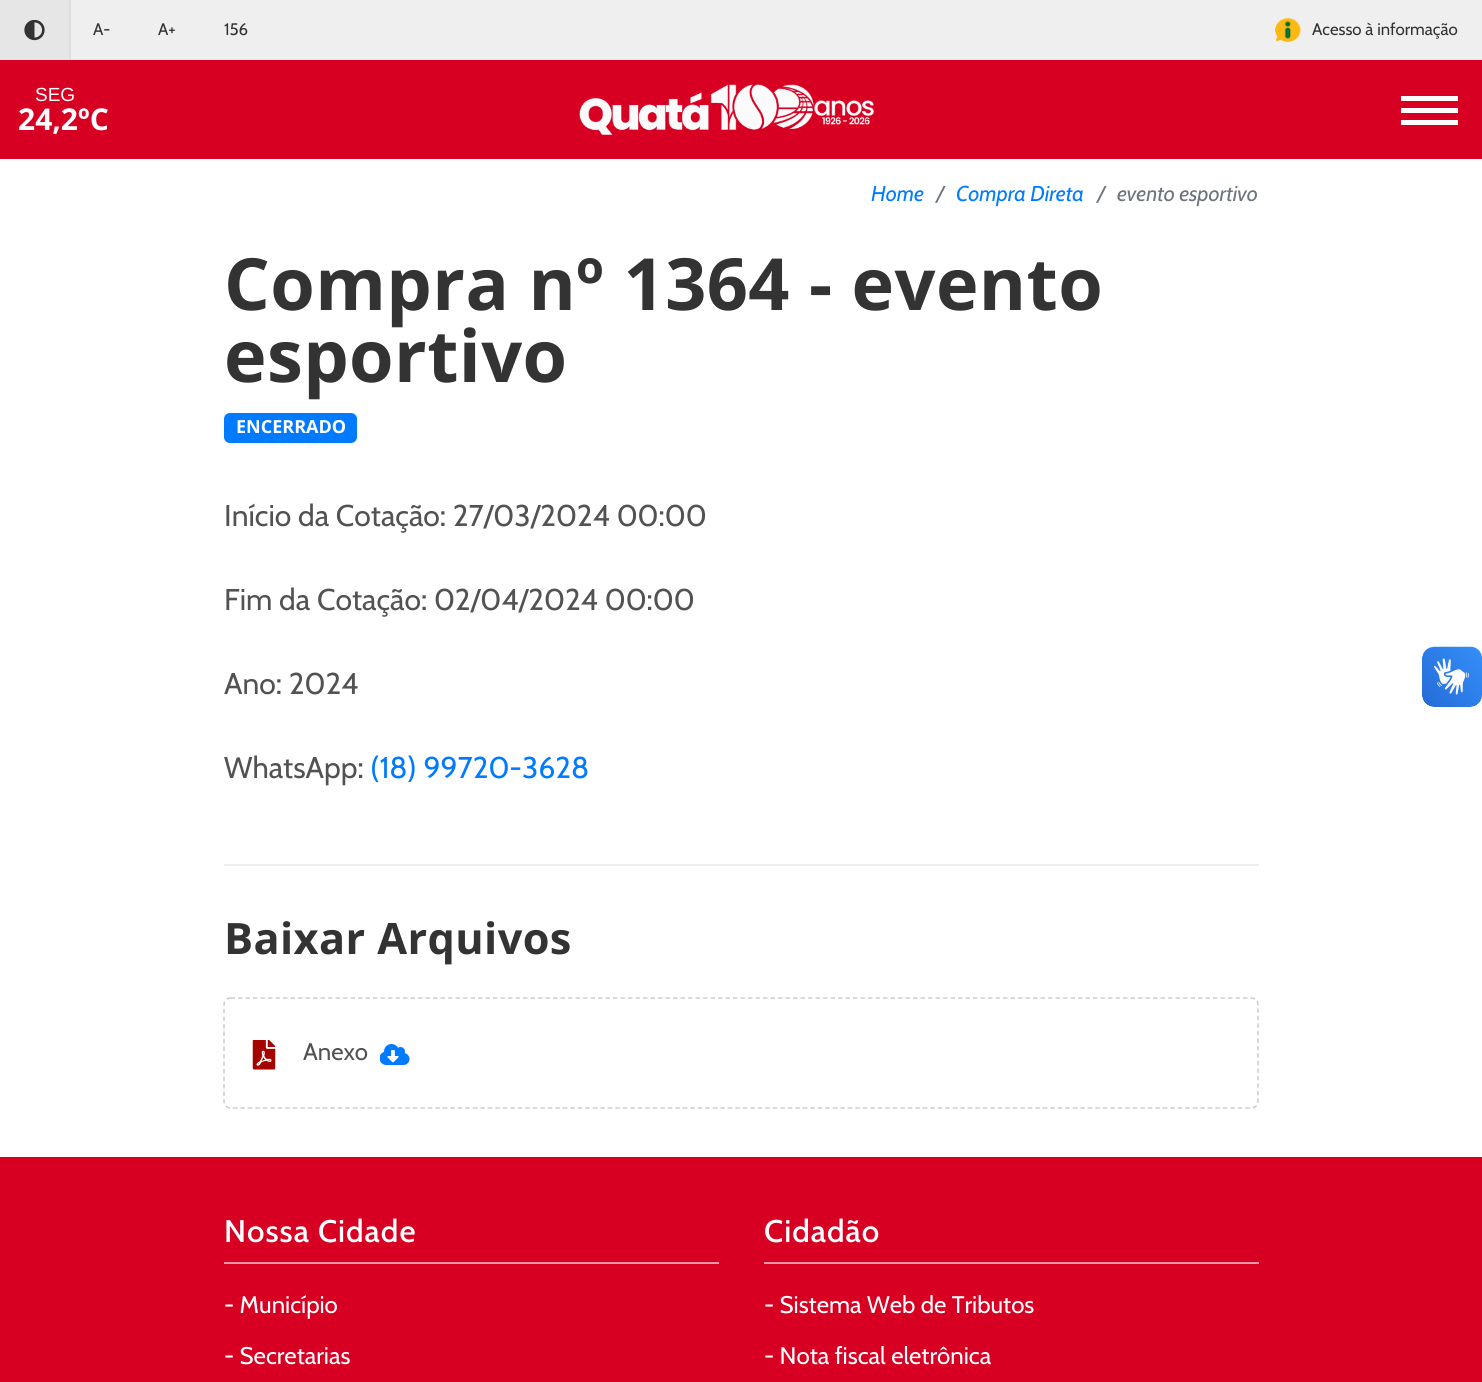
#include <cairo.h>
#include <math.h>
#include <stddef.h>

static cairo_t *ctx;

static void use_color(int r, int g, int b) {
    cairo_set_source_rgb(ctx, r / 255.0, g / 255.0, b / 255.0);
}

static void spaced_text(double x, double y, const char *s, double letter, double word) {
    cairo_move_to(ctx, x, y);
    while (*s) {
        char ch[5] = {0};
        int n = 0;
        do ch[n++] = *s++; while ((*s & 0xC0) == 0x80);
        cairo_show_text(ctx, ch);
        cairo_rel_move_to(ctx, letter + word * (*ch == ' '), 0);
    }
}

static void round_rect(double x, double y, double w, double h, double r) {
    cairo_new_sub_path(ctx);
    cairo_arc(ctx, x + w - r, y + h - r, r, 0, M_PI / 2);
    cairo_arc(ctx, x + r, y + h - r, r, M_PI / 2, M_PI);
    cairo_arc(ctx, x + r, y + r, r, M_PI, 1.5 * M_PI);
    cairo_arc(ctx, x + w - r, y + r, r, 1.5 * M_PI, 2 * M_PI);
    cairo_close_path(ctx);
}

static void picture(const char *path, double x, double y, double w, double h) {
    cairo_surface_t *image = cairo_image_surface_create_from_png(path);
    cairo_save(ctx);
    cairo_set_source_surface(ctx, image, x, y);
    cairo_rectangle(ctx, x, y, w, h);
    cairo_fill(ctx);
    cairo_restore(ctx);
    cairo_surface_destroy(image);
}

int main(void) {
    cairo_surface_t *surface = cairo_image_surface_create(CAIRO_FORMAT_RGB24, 1482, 1382);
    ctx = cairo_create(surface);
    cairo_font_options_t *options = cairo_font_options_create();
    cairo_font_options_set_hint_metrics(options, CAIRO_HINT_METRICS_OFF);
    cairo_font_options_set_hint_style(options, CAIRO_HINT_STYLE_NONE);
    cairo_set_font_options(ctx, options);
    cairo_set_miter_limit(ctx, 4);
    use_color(255, 255, 255);
    cairo_paint(ctx);
    use_color(239, 239, 239);
    cairo_rectangle(ctx, 71, 0, 1411, 60);
    cairo_fill(ctx);
    use_color(222, 222, 222);
    cairo_rectangle(ctx, 69, 0, 2, 60);
    cairo_fill(ctx);
    use_color(230, 230, 230);
    cairo_rectangle(ctx, 0, 0, 69, 60);
    cairo_fill(ctx);
    picture("img1.png", 24, 20, 21, 21);
    cairo_select_font_face(ctx, "Cabin", CAIRO_FONT_SLANT_NORMAL, CAIRO_FONT_WEIGHT_NORMAL);
    cairo_set_font_size(ctx, 16.75);
    use_color(51, 51, 51);
    cairo_move_to(ctx, 93, 35);
    cairo_show_text(ctx, "A-");
    cairo_move_to(ctx, 158, 35);
    cairo_show_text(ctx, "A+");
    cairo_move_to(ctx, 224, 35);
    cairo_show_text(ctx, "156");
    picture("img2.png", 1275, 18, 26, 24);
    cairo_move_to(ctx, 1312, 35);
    cairo_show_text(ctx, "Acesso à informação");
    use_color(215, 0, 34);
    cairo_rectangle(ctx, 0, 60, 1482, 99);
    cairo_fill(ctx);
    cairo_select_font_face(ctx, "Liberation Sans", CAIRO_FONT_SLANT_NORMAL, CAIRO_FONT_WEIGHT_NORMAL);
    cairo_set_font_size(ctx, 19);
    use_color(255, 255, 255);
    cairo_move_to(ctx, 35, 101);
    cairo_show_text(ctx, "SEG");
    cairo_select_font_face(ctx, "Open Sans", CAIRO_FONT_SLANT_NORMAL, CAIRO_FONT_WEIGHT_BOLD);
    cairo_set_font_size(ctx, 30);
    cairo_move_to(ctx, 18, 130);
    cairo_show_text(ctx, "24,2ºC");
    picture("img3.png", 579, 84, 295, 51);
    cairo_rectangle(ctx, 1401, 96, 57, 5);
    cairo_fill(ctx);
    cairo_rectangle(ctx, 1401, 108, 57, 5);
    cairo_fill(ctx);
    cairo_rectangle(ctx, 1401, 120, 57, 5);
    cairo_fill(ctx);
    cairo_select_font_face(ctx, "Cabin", CAIRO_FONT_SLANT_ITALIC, CAIRO_FONT_WEIGHT_NORMAL);
    cairo_set_font_size(ctx, 21.5);
    use_color(0, 123, 255);
    cairo_move_to(ctx, 871, 201);
    cairo_show_text(ctx, "Home");
    use_color(108, 117, 125);
    cairo_move_to(ctx, 936, 201);
    cairo_show_text(ctx, "/");
    use_color(0, 123, 255);
    cairo_move_to(ctx, 956, 201);
    cairo_show_text(ctx, "Compra Direta");
    use_color(108, 117, 125);
    cairo_move_to(ctx, 1097, 201);
    cairo_show_text(ctx, "/");
    cairo_move_to(ctx, 1117, 201);
    cairo_show_text(ctx, "evento esportivo");
    cairo_select_font_face(ctx, "Open Sans", CAIRO_FONT_SLANT_NORMAL, CAIRO_FONT_WEIGHT_BOLD);
    cairo_set_font_size(ctx, 72);
    use_color(51, 51, 51);
    spaced_text(224, 310, "Compra nº 1364 - evento", 0.4, 0);
    spaced_text(224, 382, "esportivo", 0.4, 0);
    use_color(0, 123, 255);
    round_rect(224, 413, 133, 30, 6);
    cairo_fill(ctx);
    cairo_set_font_size(ctx, 18);
    use_color(255, 255, 255);
    cairo_move_to(ctx, 236, 433);
    cairo_show_text(ctx, "ENCERRADO");
    cairo_select_font_face(ctx, "Cabin", CAIRO_FONT_SLANT_NORMAL, CAIRO_FONT_WEIGHT_NORMAL);
    cairo_set_font_size(ctx, 30);
    use_color(82, 82, 82);
    cairo_move_to(ctx, 224, 526);
    cairo_show_text(ctx, "Início da Cotação: 27/03/2024 00:00");
    cairo_move_to(ctx, 224, 610);
    cairo_show_text(ctx, "Fim da Cotação: 02/04/2024 00:00");
    cairo_move_to(ctx, 224, 694);
    cairo_show_text(ctx, "Ano: 2024");
    cairo_move_to(ctx, 224, 778);
    cairo_show_text(ctx, "WhatsApp:");
    use_color(0, 123, 255);
    cairo_move_to(ctx, 370, 778);
    cairo_show_text(ctx, "(18) 99720-3628");
    use_color(238, 238, 238);
    cairo_rectangle(ctx, 224, 864, 1035, 2);
    cairo_fill(ctx);
    cairo_select_font_face(ctx, "Open Sans", CAIRO_FONT_SLANT_NORMAL, CAIRO_FONT_WEIGHT_BOLD);
    cairo_set_font_size(ctx, 43.25);
    use_color(51, 51, 51);
    spaced_text(224, 954, "Baixar Arquivos", 0.4, 0);
    cairo_new_path(ctx);
    cairo_move_to(ctx, 230.5, 998);
    cairo_line_to(ctx, 1251.5, 998);
    cairo_curve_to(ctx, 1255, 998, 1258, 1001, 1258, 1004.5);
    cairo_line_to(ctx, 1258, 1101.5);
    cairo_curve_to(ctx, 1258, 1105, 1255, 1108, 1251.5, 1108);
    cairo_line_to(ctx, 230.5, 1108);
    cairo_curve_to(ctx, 227, 1108, 224, 1105, 224, 1101.5);
    cairo_line_to(ctx, 224, 1004.5);
    cairo_curve_to(ctx, 224, 1001, 227, 998, 230.5, 998);
    cairo_close_path(ctx);
    use_color(204, 204, 204);
    cairo_set_line_width(ctx, 1.5);
    cairo_set_dash(ctx, (double[]){4.5, 3}, 2, 0);
    cairo_stroke(ctx);
    picture("img4.png", 252, 1040, 24, 30);
    cairo_select_font_face(ctx, "Cabin", CAIRO_FONT_SLANT_NORMAL, CAIRO_FONT_WEIGHT_NORMAL);
    cairo_set_font_size(ctx, 24);
    use_color(82, 82, 82);
    cairo_move_to(ctx, 303, 1060);
    cairo_show_text(ctx, "Anexo");
    picture("img5.png", 380, 1044, 30, 21);
    use_color(215, 0, 34);
    cairo_rectangle(ctx, 0, 1157, 1482, 225);
    cairo_fill(ctx);
    use_color(239, 153, 167);
    cairo_rectangle(ctx, 224, 1262, 495, 2);
    cairo_fill(ctx);
    cairo_select_font_face(ctx, "Cabin Medium", CAIRO_FONT_SLANT_NORMAL, CAIRO_FONT_WEIGHT_NORMAL);
    cairo_set_font_size(ctx, 31.25);
    use_color(255, 255, 255);
    spaced_text(224, 1242, "Nossa Cidade", 1, 0);
    cairo_select_font_face(ctx, "Cabin", CAIRO_FONT_SLANT_NORMAL, CAIRO_FONT_WEIGHT_NORMAL);
    cairo_set_font_size(ctx, 24);
    cairo_move_to(ctx, 224, 1313);
    cairo_show_text(ctx, "- Município");
    cairo_move_to(ctx, 224, 1364);
    cairo_show_text(ctx, "- Secretarias");
    use_color(239, 153, 167);
    cairo_rectangle(ctx, 764, 1262, 495, 2);
    cairo_fill(ctx);
    cairo_select_font_face(ctx, "Cabin Medium", CAIRO_FONT_SLANT_NORMAL, CAIRO_FONT_WEIGHT_NORMAL);
    cairo_set_font_size(ctx, 31.25);
    use_color(255, 255, 255);
    spaced_text(764, 1242, "Cidadão", 1, 0);
    cairo_select_font_face(ctx, "Cabin", CAIRO_FONT_SLANT_NORMAL, CAIRO_FONT_WEIGHT_NORMAL);
    cairo_set_font_size(ctx, 24);
    cairo_move_to(ctx, 764, 1313);
    cairo_show_text(ctx, "- Sistema Web de Tributos");
    cairo_move_to(ctx, 764, 1364);
    cairo_show_text(ctx, "- Nota fiscal eletrônica");
    picture("img6.png", 1422, 646, 60, 61);
    picture("img7.png", 1422, 647, 60, 60);
    cairo_surface_write_to_png(surface, "result.png");
    cairo_font_options_destroy(options);
    cairo_destroy(ctx);
    cairo_surface_destroy(surface);
    return 0;
}
